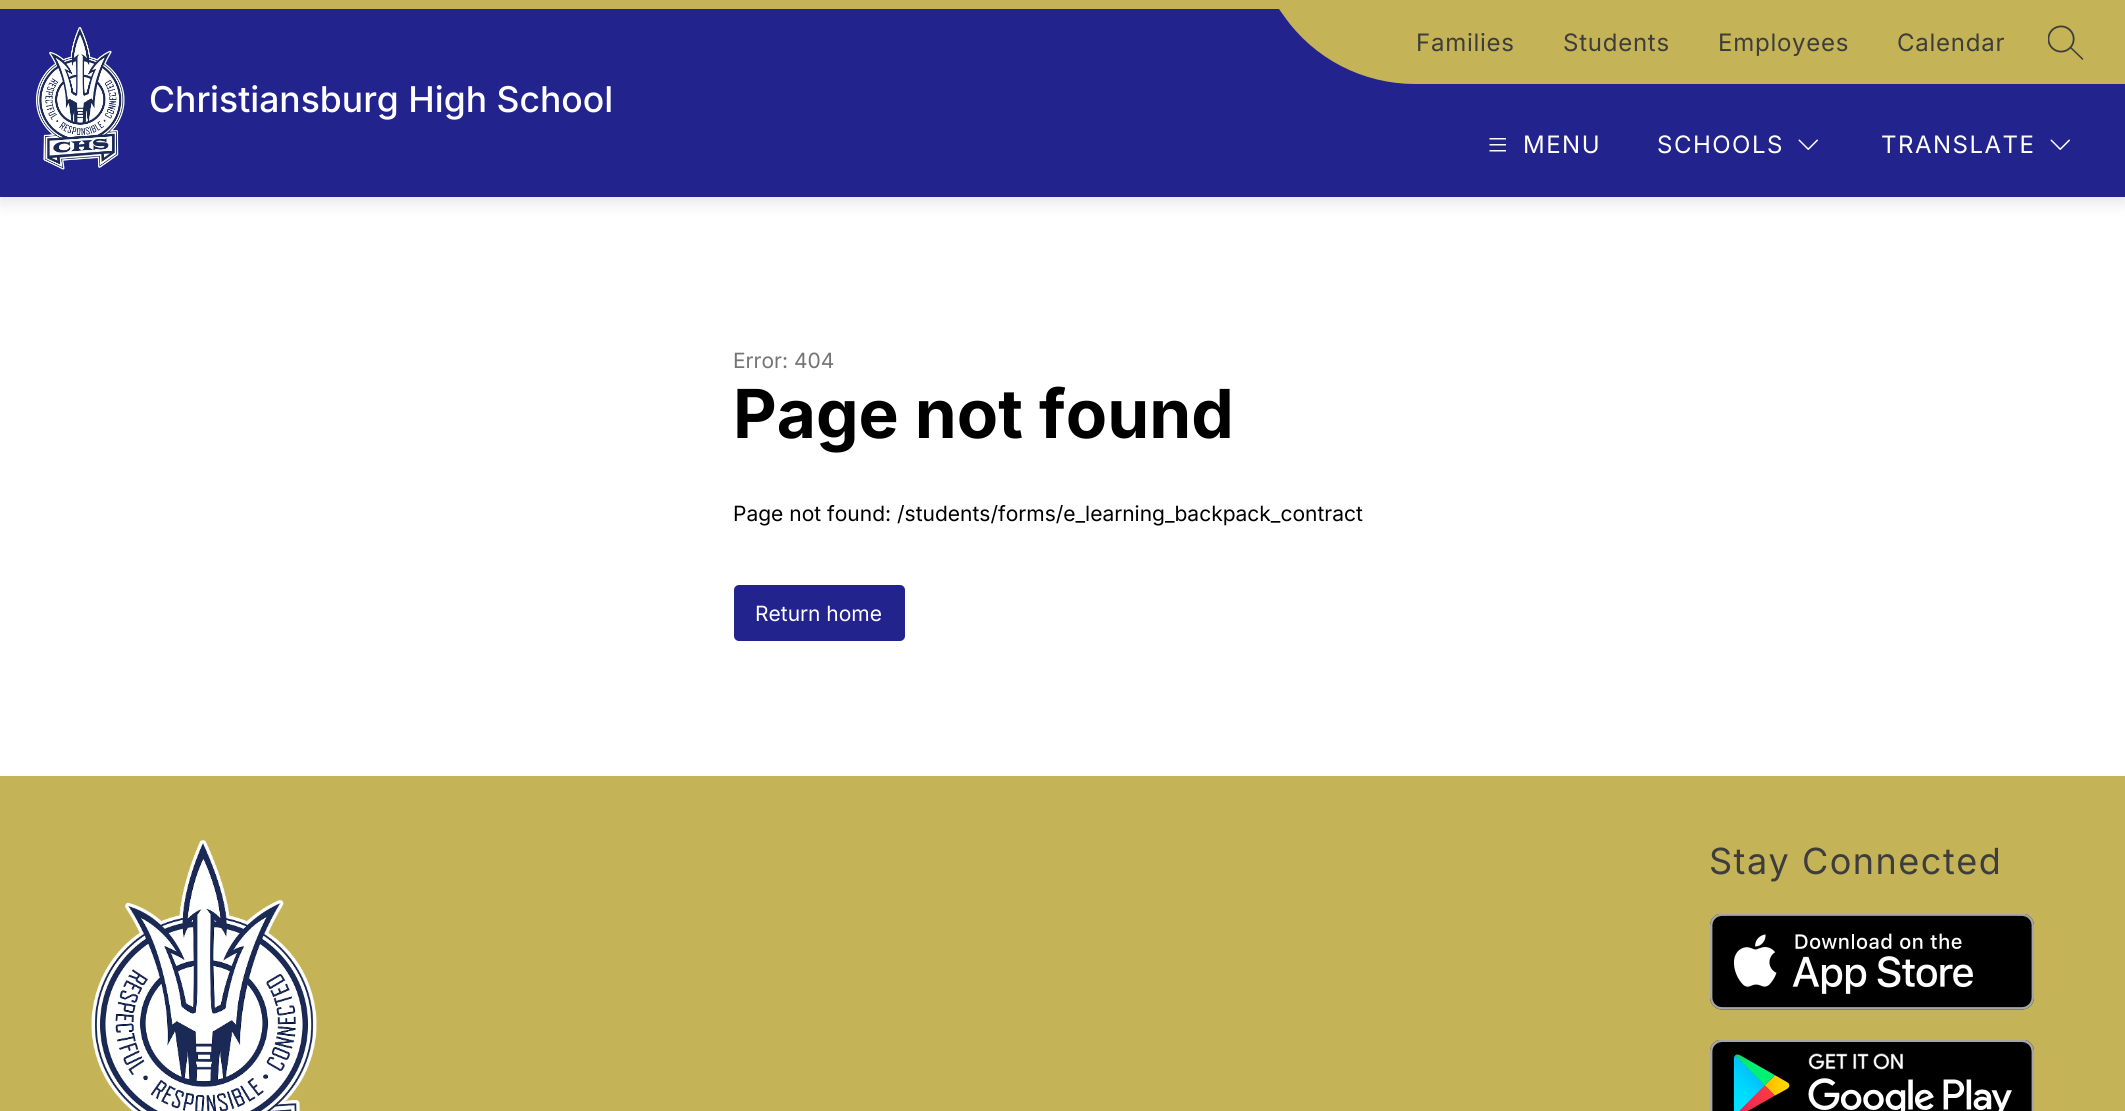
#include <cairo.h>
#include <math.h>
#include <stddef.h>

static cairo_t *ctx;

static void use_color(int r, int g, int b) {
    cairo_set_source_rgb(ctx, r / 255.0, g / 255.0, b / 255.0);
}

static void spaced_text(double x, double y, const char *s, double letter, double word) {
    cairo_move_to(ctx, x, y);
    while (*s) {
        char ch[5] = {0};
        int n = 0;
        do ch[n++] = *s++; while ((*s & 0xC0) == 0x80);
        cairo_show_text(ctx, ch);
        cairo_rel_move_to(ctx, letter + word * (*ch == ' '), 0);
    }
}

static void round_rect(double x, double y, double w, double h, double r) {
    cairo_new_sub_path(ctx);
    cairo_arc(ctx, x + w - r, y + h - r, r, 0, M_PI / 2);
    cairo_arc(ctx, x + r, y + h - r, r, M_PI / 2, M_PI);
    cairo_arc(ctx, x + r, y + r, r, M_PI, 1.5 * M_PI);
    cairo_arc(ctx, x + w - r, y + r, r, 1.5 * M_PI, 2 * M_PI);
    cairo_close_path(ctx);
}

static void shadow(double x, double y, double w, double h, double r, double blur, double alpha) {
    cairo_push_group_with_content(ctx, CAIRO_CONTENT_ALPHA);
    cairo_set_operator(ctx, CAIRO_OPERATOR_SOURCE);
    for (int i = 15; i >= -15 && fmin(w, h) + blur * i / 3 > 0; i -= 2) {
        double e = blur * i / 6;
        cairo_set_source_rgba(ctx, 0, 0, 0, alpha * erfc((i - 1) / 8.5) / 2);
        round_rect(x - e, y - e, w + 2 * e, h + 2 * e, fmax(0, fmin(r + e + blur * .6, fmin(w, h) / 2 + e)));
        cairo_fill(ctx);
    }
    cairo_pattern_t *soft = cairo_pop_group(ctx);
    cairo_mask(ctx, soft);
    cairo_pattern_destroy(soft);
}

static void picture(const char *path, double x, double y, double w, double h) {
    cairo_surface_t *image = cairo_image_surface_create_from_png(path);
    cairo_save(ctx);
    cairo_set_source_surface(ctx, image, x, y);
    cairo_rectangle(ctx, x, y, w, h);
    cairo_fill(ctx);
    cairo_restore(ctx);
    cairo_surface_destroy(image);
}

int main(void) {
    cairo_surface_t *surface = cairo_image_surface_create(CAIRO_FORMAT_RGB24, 2125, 1111);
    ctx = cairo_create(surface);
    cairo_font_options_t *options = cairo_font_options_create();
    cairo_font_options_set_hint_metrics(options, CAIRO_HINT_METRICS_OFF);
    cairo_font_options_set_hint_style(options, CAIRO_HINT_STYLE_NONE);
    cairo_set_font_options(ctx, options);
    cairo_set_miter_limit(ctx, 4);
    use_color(255, 255, 255);
    cairo_paint(ctx);
    use_color(0, 0, 0);
    shadow(0, 6, 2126, 197, 0, 7.5, 0.1);
    use_color(35, 35, 141);
    cairo_rectangle(ctx, 0, 9, 2125, 188);
    cairo_fill(ctx);
    use_color(197, 179, 87);
    cairo_rectangle(ctx, 0, 0, 1279, 9);
    cairo_fill(ctx);
    picture("img1.png", 36, 27, 89, 143);
    cairo_select_font_face(ctx, "Inter Medium", CAIRO_FONT_SLANT_NORMAL, CAIRO_FONT_WEIGHT_NORMAL);
    cairo_set_font_size(ctx, 35.5);
    use_color(255, 255, 255);
    cairo_move_to(ctx, 149, 112);
    cairo_show_text(ctx, "Christiansburg High School");
    use_color(197, 179, 87);
    cairo_rectangle(ctx, 1419, 0, 706, 84);
    cairo_fill(ctx);
    cairo_new_path(ctx);
    cairo_move_to(ctx, 1415, 84);
    cairo_line_to(ctx, 1419, 84);
    cairo_line_to(ctx, 1419, 0);
    cairo_line_to(ctx, 1275, 0);
    cairo_curve_to(ctx, 1274, 0, 1273, 1, 1274, 2);
    cairo_line_to(ctx, 1284, 16);
    cairo_curve_to(ctx, 1314, 59, 1363, 84, 1415, 84);
    cairo_close_path(ctx);
    cairo_fill(ctx);
    cairo_select_font_face(ctx, "Inter", CAIRO_FONT_SLANT_NORMAL, CAIRO_FONT_WEIGHT_NORMAL);
    cairo_set_font_size(ctx, 24);
    use_color(61, 61, 61);
    spaced_text(1416, 51, "Families", 0.75, 0);
    spaced_text(1563, 51, "Students", 0.75, 0);
    spaced_text(1718, 51, "Employees", 0.75, 0);
    spaced_text(1897, 51, "Calendar", 0.75, 0);
    picture("img2.png", 2048, 25, 36, 35);
    picture("img3.png", 1489, 138, 17, 14);
    use_color(255, 255, 255);
    spaced_text(1523, 153, "MENU", 1.5, 0);
    spaced_text(1657, 153, "SCHOOLS", 1.5, 0);
    picture("img4.png", 1798, 139, 20, 11);
    spaced_text(1881, 153, "TRANSLATE", 1.5, 0);
    picture("img4.png", 2050, 139, 20, 11);
    cairo_set_font_size(ctx, 21);
    use_color(116, 116, 116);
    cairo_move_to(ctx, 733, 368);
    cairo_show_text(ctx, "Error: 404");
    cairo_select_font_face(ctx, "Inter", CAIRO_FONT_SLANT_NORMAL, CAIRO_FONT_WEIGHT_BOLD);
    cairo_set_font_size(ctx, 67.5);
    use_color(0, 0, 0);
    cairo_move_to(ctx, 733, 438);
    cairo_show_text(ctx, "Page not found");
    cairo_select_font_face(ctx, "Inter", CAIRO_FONT_SLANT_NORMAL, CAIRO_FONT_WEIGHT_NORMAL);
    cairo_set_font_size(ctx, 21);
    cairo_move_to(ctx, 733, 521);
    cairo_show_text(ctx, "Page not found: /students/forms/e_learning_backpack_contract");
    use_color(35, 35, 141);
    round_rect(734, 585, 171, 56, 5);
    cairo_fill(ctx);
    use_color(255, 255, 255);
    cairo_move_to(ctx, 755, 621);
    cairo_show_text(ctx, "Return home");
    use_color(197, 179, 87);
    cairo_rectangle(ctx, 0, 776, 2125, 335);
    cairo_fill(ctx);
    picture("img5.png", 91, 840, 226, 271);
    cairo_set_font_size(ctx, 36);
    use_color(61, 61, 61);
    spaced_text(1709, 874, "Stay Connected", 1.5, 0);
    picture("img6.png", 1710, 914, 324, 96);
    picture("img7.png", 1710, 1040, 324, 71);
    cairo_surface_write_to_png(surface, "result.png");
    cairo_font_options_destroy(options);
    cairo_destroy(ctx);
    cairo_surface_destroy(surface);
    return 0;
}
